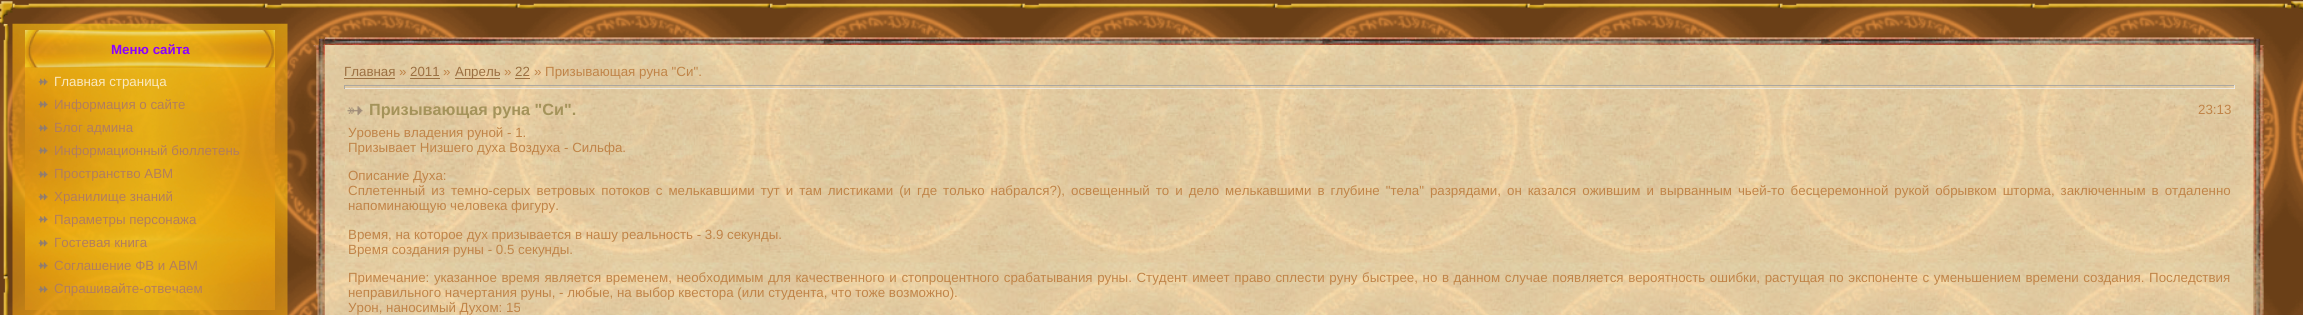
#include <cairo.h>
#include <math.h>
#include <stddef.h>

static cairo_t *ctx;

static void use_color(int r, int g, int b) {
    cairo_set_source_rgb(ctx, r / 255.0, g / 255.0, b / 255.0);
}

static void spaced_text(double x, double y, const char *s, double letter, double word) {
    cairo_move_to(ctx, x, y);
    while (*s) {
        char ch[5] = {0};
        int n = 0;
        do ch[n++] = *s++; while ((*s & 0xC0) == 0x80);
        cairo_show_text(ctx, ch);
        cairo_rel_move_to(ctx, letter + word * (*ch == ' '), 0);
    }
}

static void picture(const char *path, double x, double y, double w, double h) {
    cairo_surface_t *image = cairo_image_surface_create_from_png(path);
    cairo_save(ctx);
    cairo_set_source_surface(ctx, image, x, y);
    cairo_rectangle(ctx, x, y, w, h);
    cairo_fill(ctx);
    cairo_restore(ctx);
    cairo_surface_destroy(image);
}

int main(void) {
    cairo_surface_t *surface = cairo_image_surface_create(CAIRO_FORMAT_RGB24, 2303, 315);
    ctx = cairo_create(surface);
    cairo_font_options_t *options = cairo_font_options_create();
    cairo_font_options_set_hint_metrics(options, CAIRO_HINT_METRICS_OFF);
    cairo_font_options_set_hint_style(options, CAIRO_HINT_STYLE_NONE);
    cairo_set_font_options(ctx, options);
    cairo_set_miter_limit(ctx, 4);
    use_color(255, 255, 255);
    cairo_paint(ctx);
    picture("img1.png", 0, 0, 2303, 315);
    picture("img2.png", 0, 1, 13, 23);
    picture("img3.png", 12, 3, 2280, 6);
    picture("img4.png", 2291, 1, 12, 12);
    picture("img5.png", 3, 23, 6, 292);
    picture("img6.png", 12, 23, 276, 292);
    picture("img7.png", 25, 30, 250, 38);
    cairo_select_font_face(ctx, "Liberation Sans", CAIRO_FONT_SLANT_NORMAL, CAIRO_FONT_WEIGHT_BOLD);
    cairo_set_font_size(ctx, 13.33);
    use_color(139, 0, 255);
    cairo_move_to(ctx, 111, 54);
    cairo_show_text(ctx, "Меню сайта");
    picture("img8.png", 25, 67, 250, 243);
    picture("img9.png", 38, 78, 10, 8);
    cairo_select_font_face(ctx, "Liberation Sans", CAIRO_FONT_SLANT_NORMAL, CAIRO_FONT_WEIGHT_NORMAL);
    use_color(250, 232, 192);
    cairo_move_to(ctx, 54, 86);
    cairo_show_text(ctx, "Главная страница");
    picture("img10.png", 38, 101, 10, 7);
    use_color(178, 125, 93);
    cairo_move_to(ctx, 54, 109);
    cairo_show_text(ctx, "Информация о сайте");
    picture("img11.png", 38, 124, 10, 8);
    cairo_move_to(ctx, 54, 132);
    cairo_show_text(ctx, "Блог админа");
    picture("img12.png", 38, 147, 10, 7);
    cairo_move_to(ctx, 54, 155);
    cairo_show_text(ctx, "Информационный бюллетень");
    picture("img13.png", 38, 171, 10, 7);
    cairo_move_to(ctx, 54, 178);
    cairo_show_text(ctx, "Пространство АВМ");
    picture("img14.png", 38, 193, 10, 8);
    cairo_move_to(ctx, 54, 201);
    cairo_show_text(ctx, "Хранилище знаний");
    picture("img15.png", 38, 216, 10, 7);
    cairo_move_to(ctx, 54, 224);
    cairo_show_text(ctx, "Параметры персонажа");
    picture("img16.png", 38, 239, 10, 8);
    cairo_move_to(ctx, 54, 247);
    cairo_show_text(ctx, "Гостевая книга");
    picture("img17.png", 38, 262, 10, 7);
    cairo_move_to(ctx, 54, 270);
    cairo_show_text(ctx, "Соглашение ФВ и АВМ");
    picture("img18.png", 38, 286, 10, 7);
    cairo_move_to(ctx, 54, 293);
    cairo_show_text(ctx, "Спрашивайте-отвечаем");
    picture("img19.png", 318, 38, 7, 7);
    picture("img20.png", 325, 37, 1929, 8);
    picture("img21.png", 2253, 38, 8, 7);
    picture("img22.png", 313, 45, 12, 270);
    picture("img23.png", 325, 45, 1929, 270);
    use_color(156, 112, 66);
    cairo_move_to(ctx, 344, 76);
    cairo_show_text(ctx, "Главная");
    cairo_set_source_rgba(ctx, 0.545, 0.353, 0.169, 0.8);
    cairo_rectangle(ctx, 344, 78, 51, 1);
    cairo_fill(ctx);
    use_color(192, 132, 72);
    cairo_move_to(ctx, 399, 76);
    cairo_show_text(ctx, "»");
    use_color(156, 112, 66);
    cairo_move_to(ctx, 410, 76);
    cairo_show_text(ctx, "2011");
    cairo_set_source_rgba(ctx, 0.545, 0.353, 0.169, 0.8);
    cairo_rectangle(ctx, 410, 78, 30, 1);
    cairo_fill(ctx);
    use_color(192, 132, 72);
    cairo_move_to(ctx, 443, 76);
    cairo_show_text(ctx, "»");
    cairo_set_source_rgba(ctx, 0.545, 0.353, 0.169, 0.8);
    cairo_rectangle(ctx, 455, 78, 45, 1);
    cairo_fill(ctx);
    use_color(156, 112, 66);
    cairo_move_to(ctx, 455, 76);
    cairo_show_text(ctx, "Апрель");
    use_color(192, 132, 72);
    cairo_move_to(ctx, 504, 76);
    cairo_show_text(ctx, "»");
    use_color(156, 112, 66);
    cairo_move_to(ctx, 515, 76);
    cairo_show_text(ctx, "22");
    cairo_set_source_rgba(ctx, 0.545, 0.353, 0.169, 0.8);
    cairo_rectangle(ctx, 515, 78, 15, 1);
    cairo_fill(ctx);
    use_color(192, 132, 72);
    cairo_move_to(ctx, 534, 76);
    cairo_show_text(ctx, "» Призывающая руна \"Си\".");
    cairo_set_source_rgba(ctx, 0.624, 0.624, 0.624, 0.8);
    cairo_rectangle(ctx, 344, 85, 1891, 1);
    cairo_fill(ctx);
    cairo_set_source_rgba(ctx, 0.933, 0.933, 0.933, 0.8);
    cairo_rectangle(ctx, 2234, 85, 1, 4);
    cairo_fill(ctx);
    cairo_rectangle(ctx, 344, 88, 1891, 1);
    cairo_fill(ctx);
    use_color(172, 167, 159);
    cairo_rectangle(ctx, 344, 85, 1, 4);
    cairo_fill(ctx);
    picture("img24.png", 347, 106, 16, 10);
    cairo_select_font_face(ctx, "Liberation Sans", CAIRO_FONT_SLANT_NORMAL, CAIRO_FONT_WEIGHT_BOLD);
    cairo_set_font_size(ctx, 16.25);
    use_color(164, 147, 90);
    cairo_move_to(ctx, 369, 115);
    cairo_show_text(ctx, "Призывающая руна \"Си\".");
    cairo_select_font_face(ctx, "Liberation Sans", CAIRO_FONT_SLANT_NORMAL, CAIRO_FONT_WEIGHT_NORMAL);
    cairo_set_font_size(ctx, 13.33);
    use_color(192, 132, 72);
    cairo_move_to(ctx, 2198, 114);
    cairo_show_text(ctx, "23:13");
    cairo_move_to(ctx, 348, 137);
    cairo_show_text(ctx, "Уровень владения руной - 1.");
    cairo_move_to(ctx, 348, 152);
    cairo_show_text(ctx, "Призывает Низшего духа Воздуха - Сильфа.");
    cairo_move_to(ctx, 348, 180);
    cairo_show_text(ctx, "Описание Духа:");
    spaced_text(348, 195, "Сплетенный из темно-серых ветровых потоков с мелькавшими тут и там листиками (и где только набрался?), освещенный то и дело мелькавшими в глубине \"тела\" разрядами, он казался ожившим и вырванным чьей-то бесцеремонной рукой обрывком шторма, заключенным в отдаленно", 0, 2.3);
    cairo_move_to(ctx, 348, 210);
    cairo_show_text(ctx, "напоминающую человека фигуру.");
    cairo_move_to(ctx, 348, 239);
    cairo_show_text(ctx, "Время, на которое дух призывается в нашу реальность - 3.9 секунды.");
    cairo_move_to(ctx, 348, 254);
    cairo_show_text(ctx, "Время создания руны - 0.5 секунды.");
    spaced_text(348, 282, "Примечание: указанное время является временем, необходимым для качественного и стопроцентного срабатывания руны. Студент имеет право сплести руну быстрее, но в данном случае появляется вероятность ошибки, растущая по экспоненте с уменьшением времени создания. Последствия", 0, 0.9);
    cairo_move_to(ctx, 348, 297);
    cairo_show_text(ctx, "неправильного начертания руны, - любые, на выбор квестора (или студента, что тоже возможно).");
    cairo_move_to(ctx, 348, 312);
    cairo_show_text(ctx, "Урон, наносимый Духом: 15");
    picture("img25.png", 2253, 45, 11, 270);
    cairo_surface_write_to_png(surface, "result.png");
    cairo_font_options_destroy(options);
    cairo_destroy(ctx);
    cairo_surface_destroy(surface);
    return 0;
}
